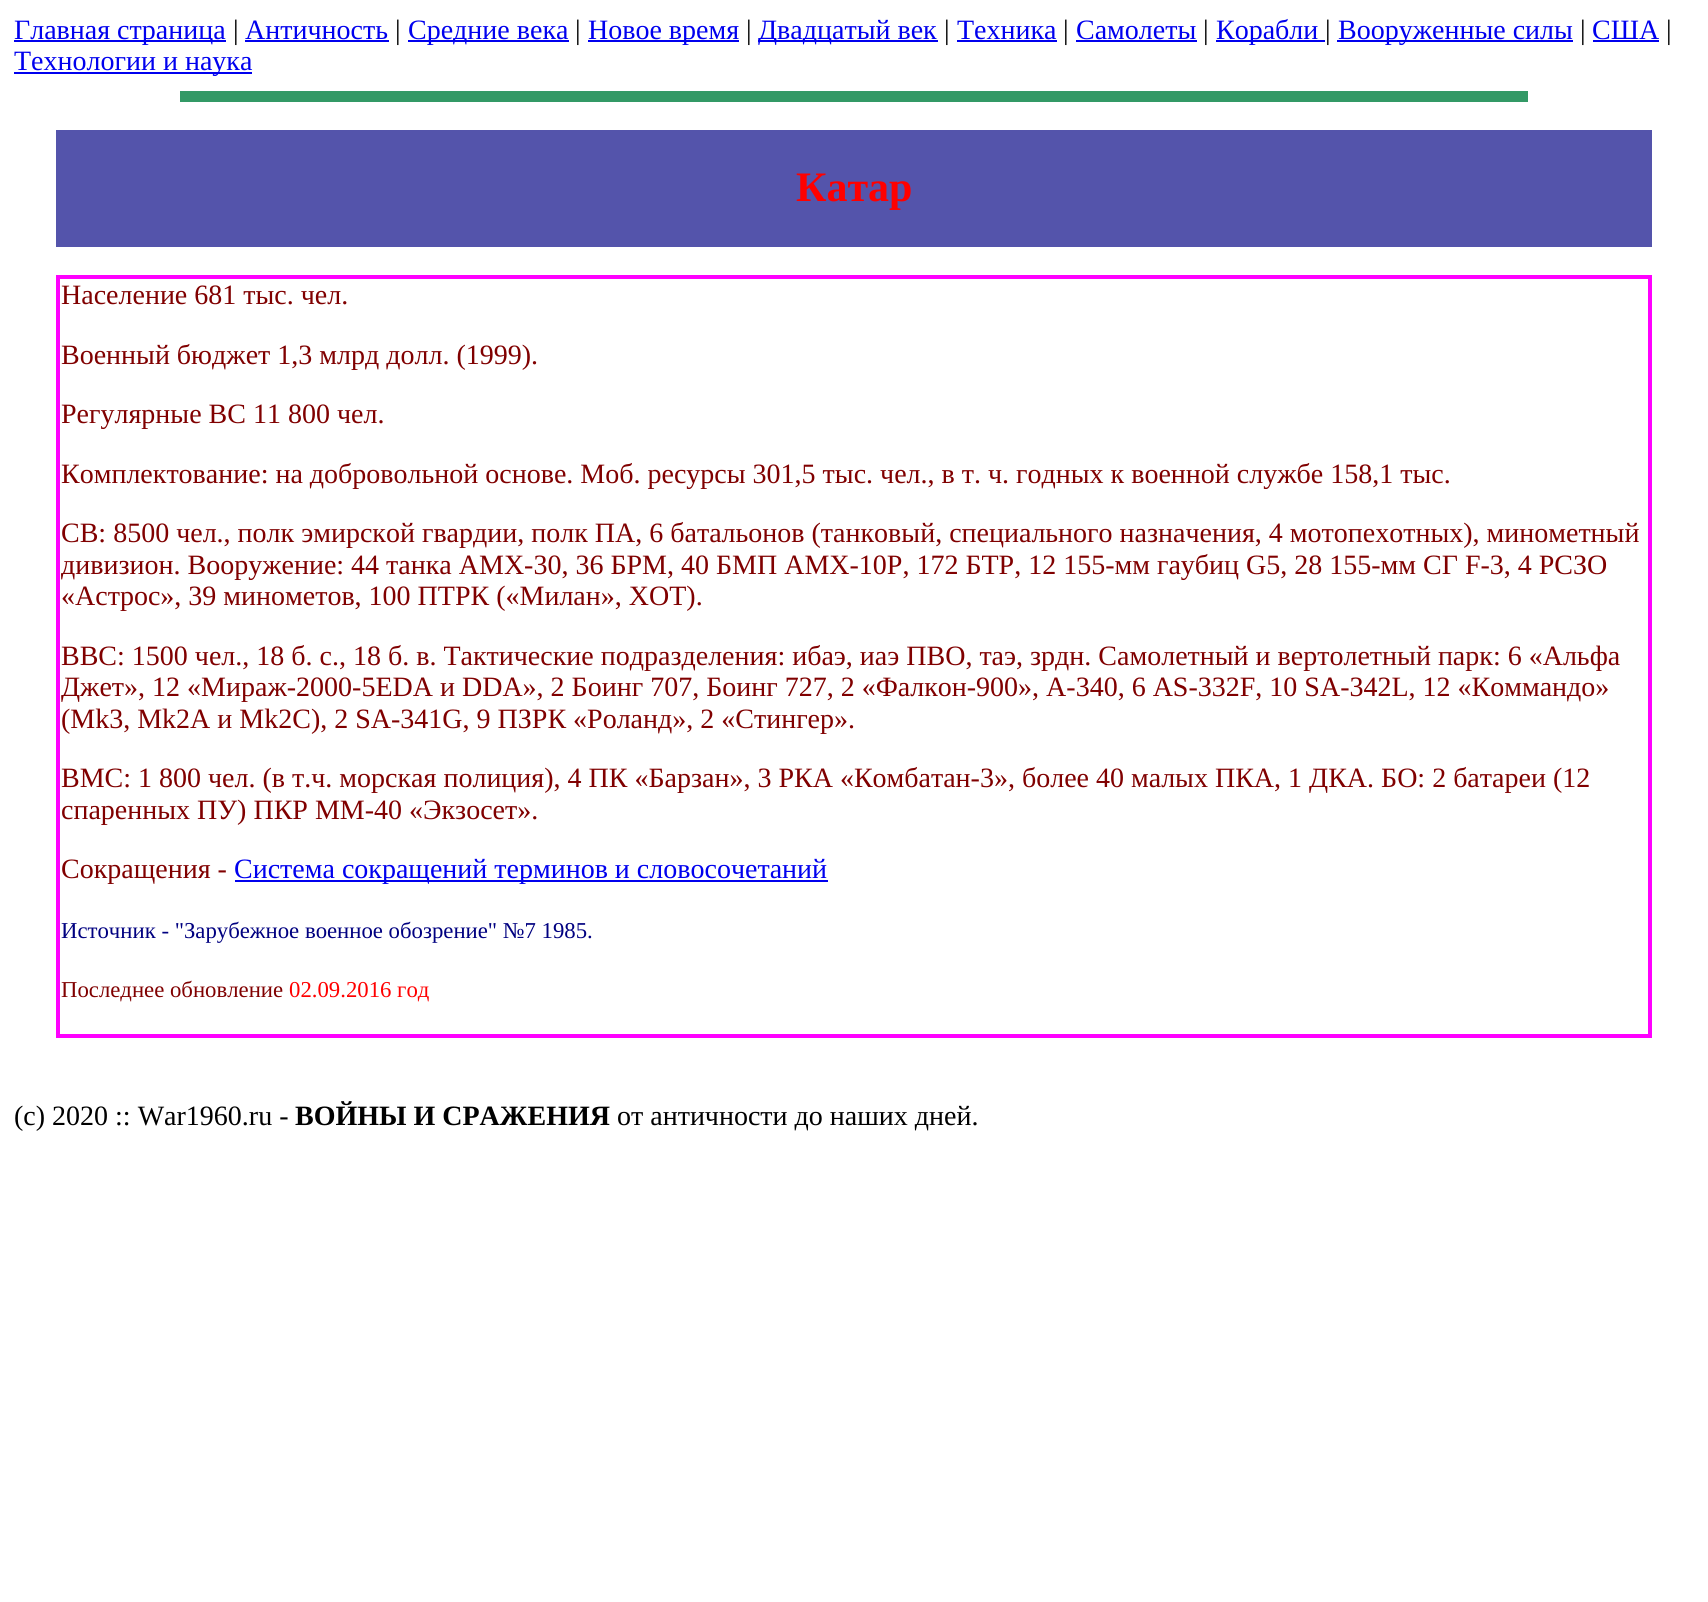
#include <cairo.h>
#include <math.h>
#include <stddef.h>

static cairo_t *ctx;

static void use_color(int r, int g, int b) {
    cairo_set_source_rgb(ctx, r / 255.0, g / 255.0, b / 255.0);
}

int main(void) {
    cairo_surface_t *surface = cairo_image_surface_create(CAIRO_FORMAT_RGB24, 1708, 1602);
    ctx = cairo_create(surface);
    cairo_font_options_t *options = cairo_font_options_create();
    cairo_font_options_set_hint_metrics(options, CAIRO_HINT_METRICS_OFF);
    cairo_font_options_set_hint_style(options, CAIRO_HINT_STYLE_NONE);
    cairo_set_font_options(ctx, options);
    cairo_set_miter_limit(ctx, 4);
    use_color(255, 255, 255);
    cairo_paint(ctx);
    use_color(0, 0, 238);
    cairo_rectangle(ctx, 14, 40, 212, 2);
    cairo_fill(ctx);
    cairo_select_font_face(ctx, "Liberation Serif", CAIRO_FONT_SLANT_NORMAL, CAIRO_FONT_WEIGHT_NORMAL);
    cairo_set_font_size(ctx, 28);
    cairo_move_to(ctx, 14, 39);
    cairo_show_text(ctx, "Главная страница");
    use_color(0, 0, 0);
    cairo_move_to(ctx, 233, 39);
    cairo_show_text(ctx, "|");
    use_color(0, 0, 238);
    cairo_move_to(ctx, 245, 39);
    cairo_show_text(ctx, "Античность");
    cairo_rectangle(ctx, 245, 40, 144, 2);
    cairo_fill(ctx);
    use_color(0, 0, 0);
    cairo_move_to(ctx, 395, 39);
    cairo_show_text(ctx, "|");
    use_color(0, 0, 238);
    cairo_rectangle(ctx, 408, 40, 161, 2);
    cairo_fill(ctx);
    cairo_move_to(ctx, 408, 39);
    cairo_show_text(ctx, "Средние века");
    use_color(0, 0, 0);
    cairo_move_to(ctx, 575, 39);
    cairo_show_text(ctx, "|");
    use_color(0, 0, 238);
    cairo_rectangle(ctx, 588, 40, 151, 2);
    cairo_fill(ctx);
    cairo_move_to(ctx, 588, 39);
    cairo_show_text(ctx, "Новое время");
    use_color(0, 0, 0);
    cairo_move_to(ctx, 746, 39);
    cairo_show_text(ctx, "|");
    use_color(0, 0, 238);
    cairo_rectangle(ctx, 758, 40, 180, 2);
    cairo_fill(ctx);
    cairo_move_to(ctx, 758, 39);
    cairo_show_text(ctx, "Двадцатый век");
    use_color(0, 0, 0);
    cairo_move_to(ctx, 944, 39);
    cairo_show_text(ctx, "|");
    use_color(0, 0, 238);
    cairo_move_to(ctx, 957, 39);
    cairo_show_text(ctx, "Техника");
    cairo_rectangle(ctx, 957, 40, 100, 2);
    cairo_fill(ctx);
    use_color(0, 0, 0);
    cairo_move_to(ctx, 1063, 39);
    cairo_show_text(ctx, "|");
    use_color(0, 0, 238);
    cairo_move_to(ctx, 1076, 39);
    cairo_show_text(ctx, "Самолеты");
    cairo_rectangle(ctx, 1076, 40, 121, 2);
    cairo_fill(ctx);
    use_color(0, 0, 0);
    cairo_move_to(ctx, 1203, 39);
    cairo_show_text(ctx, "|");
    use_color(0, 0, 238);
    cairo_rectangle(ctx, 1216, 40, 109, 2);
    cairo_fill(ctx);
    cairo_move_to(ctx, 1216, 39);
    cairo_show_text(ctx, "Корабли");
    use_color(0, 0, 0);
    cairo_move_to(ctx, 1325, 39);
    cairo_show_text(ctx, "|");
    use_color(0, 0, 238);
    cairo_rectangle(ctx, 1337, 40, 236, 2);
    cairo_fill(ctx);
    cairo_move_to(ctx, 1338, 39);
    cairo_show_text(ctx, "Вооруженные силы");
    use_color(0, 0, 0);
    cairo_move_to(ctx, 1580, 39);
    cairo_show_text(ctx, "|");
    use_color(0, 0, 238);
    cairo_move_to(ctx, 1592, 39);
    cairo_show_text(ctx, "США");
    cairo_rectangle(ctx, 1593, 40, 66, 2);
    cairo_fill(ctx);
    use_color(0, 0, 0);
    cairo_move_to(ctx, 1666, 39);
    cairo_show_text(ctx, "|");
    use_color(0, 0, 238);
    cairo_rectangle(ctx, 14, 72, 238, 2);
    cairo_fill(ctx);
    cairo_move_to(ctx, 14, 70);
    cairo_show_text(ctx, "Технологии и наука");
    use_color(51, 153, 102);
    cairo_rectangle(ctx, 180, 91, 1348, 11);
    cairo_fill(ctx);
    use_color(84, 84, 171);
    cairo_rectangle(ctx, 56, 130, 1596, 117);
    cairo_fill(ctx);
    cairo_select_font_face(ctx, "Liberation Serif", CAIRO_FONT_SLANT_NORMAL, CAIRO_FONT_WEIGHT_BOLD);
    cairo_set_font_size(ctx, 42);
    use_color(255, 0, 0);
    cairo_move_to(ctx, 796, 201);
    cairo_show_text(ctx, "Катар");
    cairo_rectangle(ctx, 57, 276, 1594, 761);
    use_color(255, 0, 255);
    cairo_stroke(ctx);
    cairo_rectangle(ctx, 59, 278, 1590, 757);
    cairo_stroke(ctx);
    cairo_select_font_face(ctx, "Liberation Serif", CAIRO_FONT_SLANT_NORMAL, CAIRO_FONT_WEIGHT_NORMAL);
    cairo_set_font_size(ctx, 28);
    use_color(128, 0, 0);
    cairo_move_to(ctx, 61, 304);
    cairo_show_text(ctx, "Население 681 тыс. чел.");
    cairo_move_to(ctx, 61, 364);
    cairo_show_text(ctx, "Военный бюджет 1,3 млрд долл. (1999).");
    cairo_move_to(ctx, 61, 423);
    cairo_show_text(ctx, "Регулярные ВС 11 800 чел.");
    cairo_move_to(ctx, 61, 483);
    cairo_show_text(ctx, "Комплектование: на добровольной основе. Моб. ресурсы 301,5 тыс. чел., в т. ч. годных к военной службе 158,1 тыс.");
    cairo_move_to(ctx, 61, 542);
    cairo_show_text(ctx, "СВ: 8500 чел., полк эмирской гвардии, полк ПА, 6 батальонов (танковый, специального назначения, 4 мотопехотных), минометный");
    cairo_move_to(ctx, 61, 574);
    cairo_show_text(ctx, "дивизион. Вооружение: 44 танка АМХ-30, 36 БРМ, 40 БМП АМХ-10Р, 172 БТР, 12 155-мм гаубиц G5, 28 155-мм СГ F-3, 4 РСЗО");
    cairo_move_to(ctx, 61, 605);
    cairo_show_text(ctx, "«Астрос», 39 минометов, 100 ПТРК («Милан», ХОТ).");
    cairo_move_to(ctx, 61, 665);
    cairo_show_text(ctx, "ВВС: 1500 чел., 18 б. с., 18 б. в. Тактические подразделения: ибаэ, иаэ ПВО, таэ, зрдн. Самолетный и вертолетный парк: 6 «Альфа");
    cairo_move_to(ctx, 61, 696);
    cairo_show_text(ctx, "Джет», 12 «Мираж-2000-5EDA и DDA», 2 Боинг 707, Боинг 727, 2 «Фалкон-900», А-340, 6 AS-332F, 10 SA-342L, 12 «Коммандо»");
    cairo_move_to(ctx, 61, 728);
    cairo_show_text(ctx, "(Mk3, Mk2A и Mk2C), 2 SA-341G, 9 ПЗРК «Роланд», 2 «Стингер».");
    cairo_move_to(ctx, 61, 787);
    cairo_show_text(ctx, "ВМС: 1 800 чел. (в т.ч. морская полиция), 4 ПК «Барзан», 3 РКА «Комбатан-3», более 40 малых ПКА, 1 ДКА. БО: 2 батареи (12");
    cairo_move_to(ctx, 61, 819);
    cairo_show_text(ctx, "спаренных ПУ) ПКР MM-40 «Экзосет».");
    cairo_move_to(ctx, 61, 878);
    cairo_show_text(ctx, "Сокращения -");
    use_color(0, 0, 238);
    cairo_rectangle(ctx, 235, 880, 593, 2);
    cairo_fill(ctx);
    cairo_move_to(ctx, 234, 878);
    cairo_show_text(ctx, "Система сокращений терминов и словосочетаний");
    cairo_set_font_size(ctx, 22.75);
    use_color(0, 0, 128);
    cairo_move_to(ctx, 61, 938);
    cairo_show_text(ctx, "Источник - \"Зарубежное военное обозрение\" №7 1985.");
    use_color(128, 0, 0);
    cairo_move_to(ctx, 61, 997);
    cairo_show_text(ctx, "Последнее обновление");
    use_color(255, 0, 0);
    cairo_move_to(ctx, 289, 997);
    cairo_show_text(ctx, "02.09.2016 год");
    cairo_set_font_size(ctx, 28);
    use_color(0, 0, 0);
    cairo_move_to(ctx, 14, 1125);
    cairo_show_text(ctx, "(c) 2020 :: War1960.ru -");
    cairo_select_font_face(ctx, "Liberation Serif", CAIRO_FONT_SLANT_NORMAL, CAIRO_FONT_WEIGHT_BOLD);
    cairo_move_to(ctx, 295, 1125);
    cairo_show_text(ctx, "ВОЙНЫ И СРАЖЕНИЯ");
    cairo_select_font_face(ctx, "Liberation Serif", CAIRO_FONT_SLANT_NORMAL, CAIRO_FONT_WEIGHT_NORMAL);
    cairo_move_to(ctx, 617, 1125);
    cairo_show_text(ctx, "от античности до наших дней.");
    cairo_surface_write_to_png(surface, "result.png");
    cairo_font_options_destroy(options);
    cairo_destroy(ctx);
    cairo_surface_destroy(surface);
    return 0;
}
